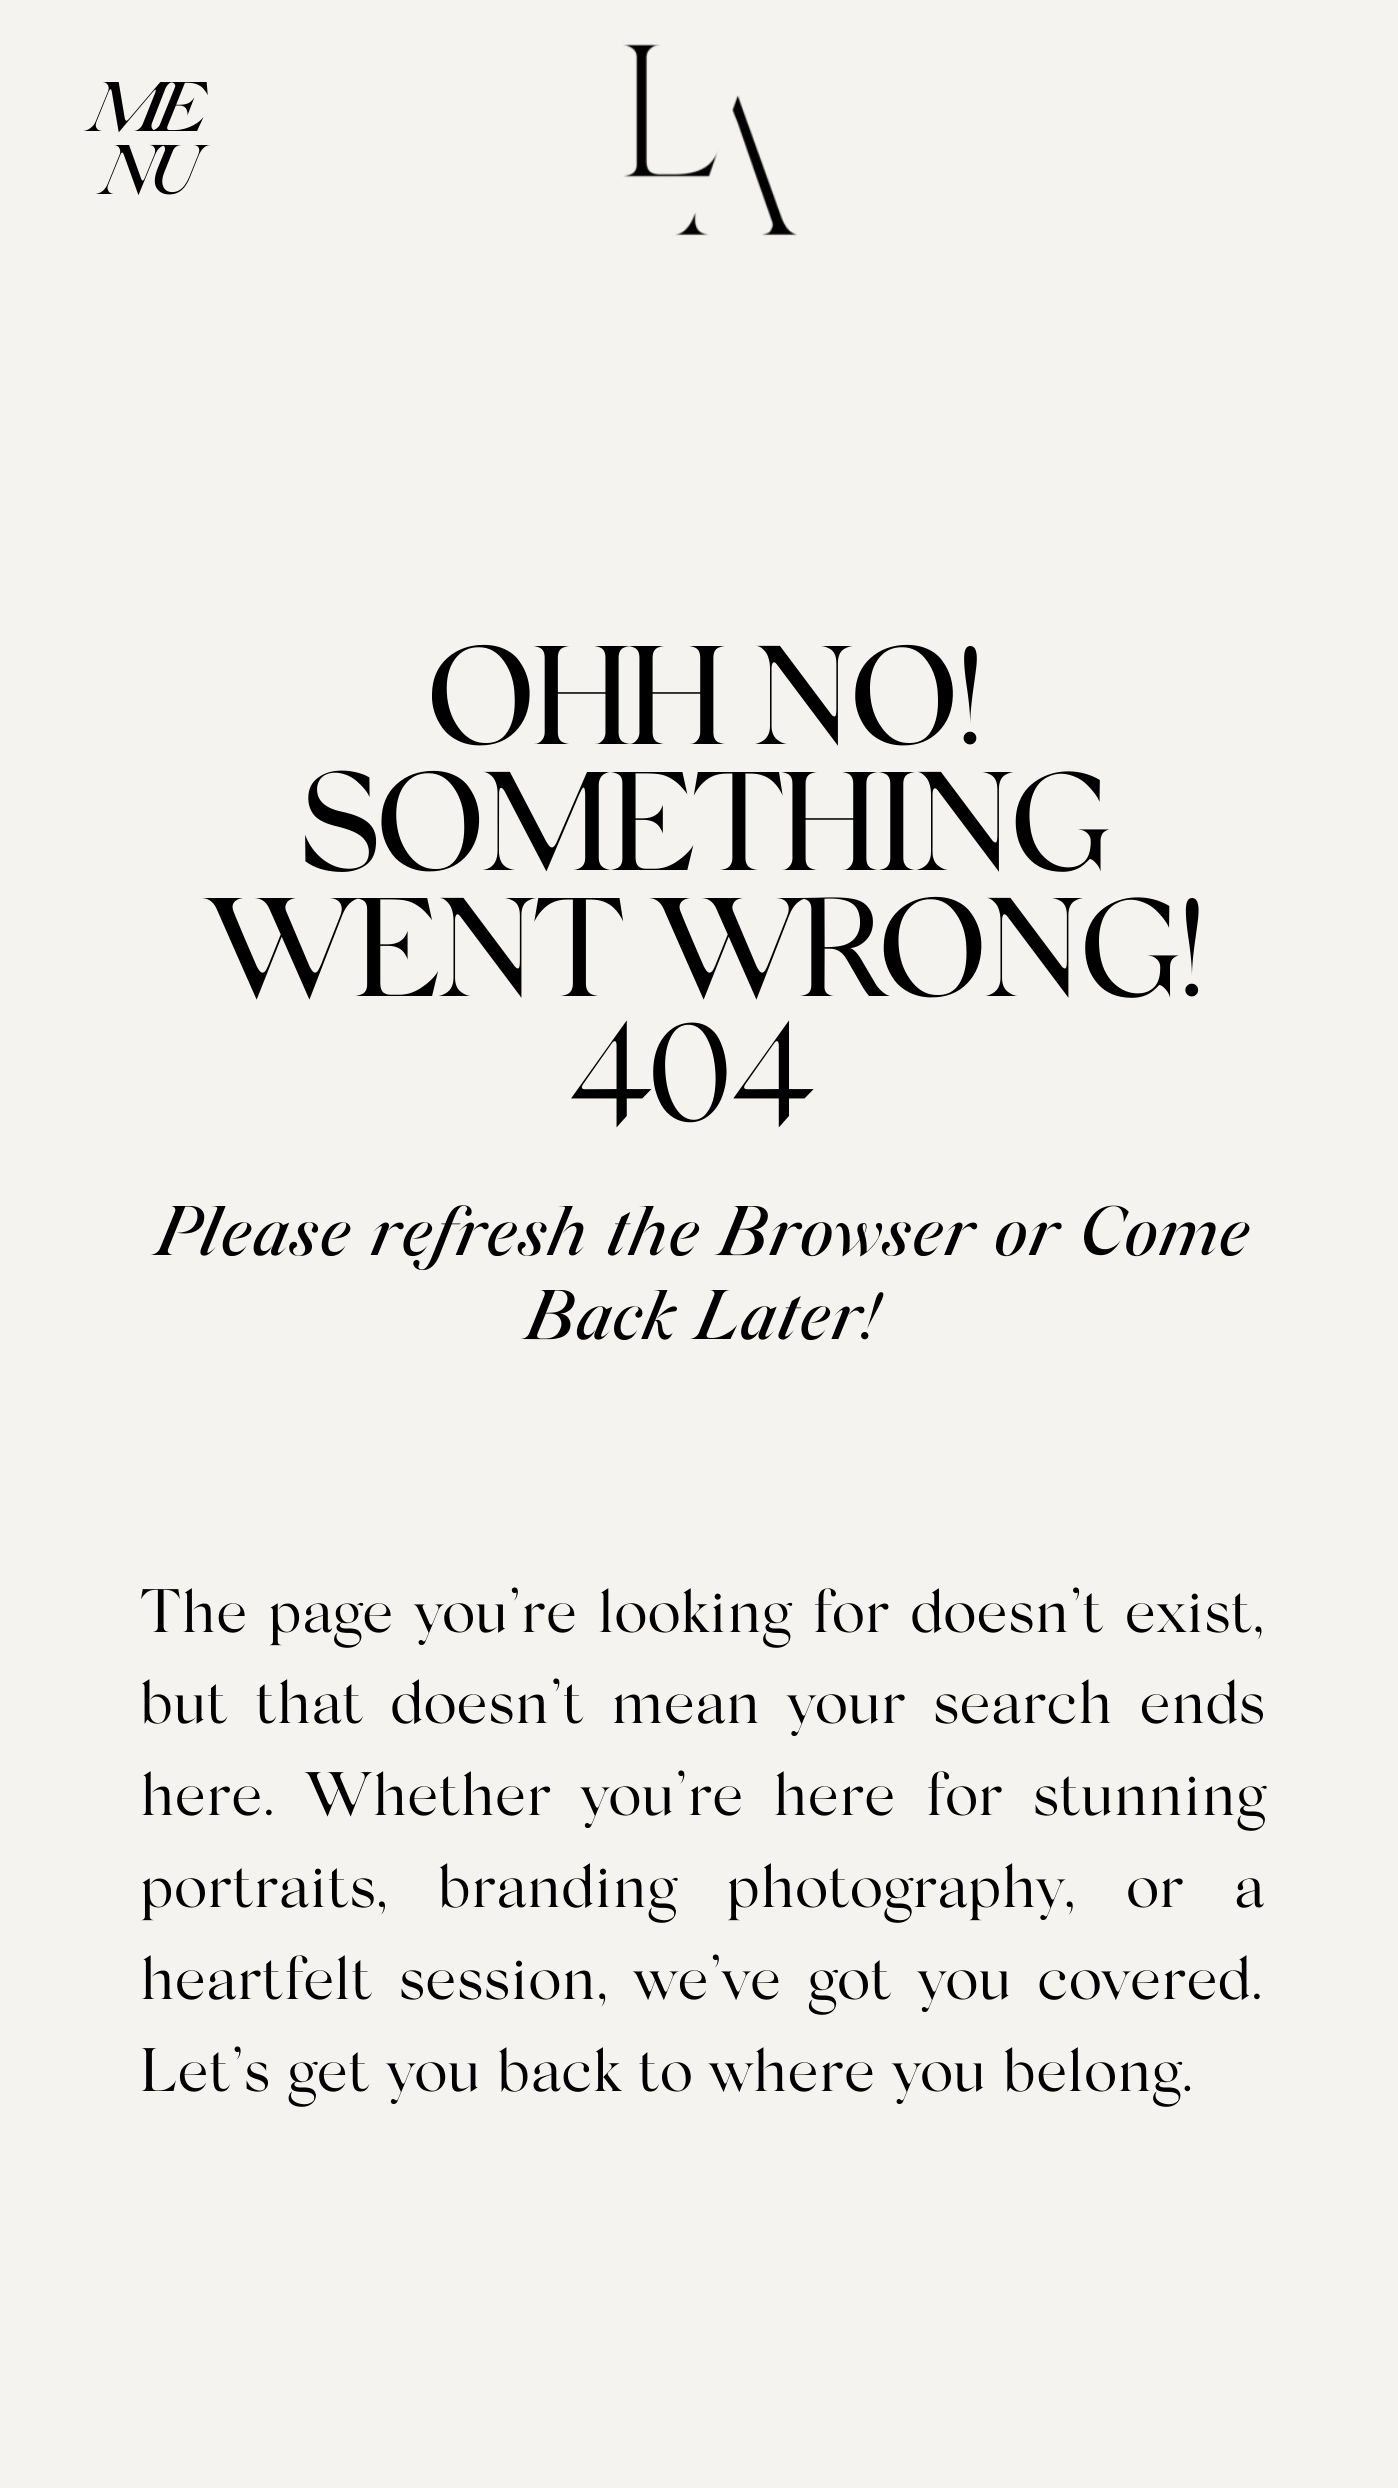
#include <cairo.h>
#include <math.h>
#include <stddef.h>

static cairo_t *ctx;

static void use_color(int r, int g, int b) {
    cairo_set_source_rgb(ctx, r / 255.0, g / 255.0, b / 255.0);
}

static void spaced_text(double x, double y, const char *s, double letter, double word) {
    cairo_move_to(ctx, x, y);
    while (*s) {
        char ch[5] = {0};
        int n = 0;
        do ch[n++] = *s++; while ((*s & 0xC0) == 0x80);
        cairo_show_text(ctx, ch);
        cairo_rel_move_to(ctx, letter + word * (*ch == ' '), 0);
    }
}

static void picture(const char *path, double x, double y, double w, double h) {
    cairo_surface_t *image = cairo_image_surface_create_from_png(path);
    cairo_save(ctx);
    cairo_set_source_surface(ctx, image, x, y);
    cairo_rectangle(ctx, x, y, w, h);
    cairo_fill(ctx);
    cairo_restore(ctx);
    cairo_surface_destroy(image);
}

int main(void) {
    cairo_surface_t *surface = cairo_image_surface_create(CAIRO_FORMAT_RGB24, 1398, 2488);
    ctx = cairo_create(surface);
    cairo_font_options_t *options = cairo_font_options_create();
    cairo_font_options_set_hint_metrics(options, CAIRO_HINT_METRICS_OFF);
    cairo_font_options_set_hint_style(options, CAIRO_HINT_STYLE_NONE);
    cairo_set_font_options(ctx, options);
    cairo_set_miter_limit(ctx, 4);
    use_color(245, 243, 240);
    cairo_paint(ctx);
    cairo_select_font_face(ctx, "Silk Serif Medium", CAIRO_FONT_SLANT_ITALIC, CAIRO_FONT_WEIGHT_NORMAL);
    cairo_set_font_size(ctx, 70);
    use_color(0, 0, 0);
    spaced_text(89, 131, "ME", -7, 0);
    spaced_text(101, 194, "NU", -7, 0);
    picture("img1.png", 623, 44, 174, 192);
    cairo_select_font_face(ctx, "Silk Serif", CAIRO_FONT_SLANT_NORMAL, CAIRO_FONT_WEIGHT_NORMAL);
    cairo_set_font_size(ctx, 140);
    spaced_text(425, 744, "OHH NO!", -7, 0);
    spaced_text(298, 870, "SOMETHING", -7, 0);
    spaced_text(204, 996, "WENT WRONG!", -7, 0);
    spaced_text(566, 1121, "404", -7, 0);
    cairo_select_font_face(ctx, "Silk Serif Medium", CAIRO_FONT_SLANT_ITALIC, CAIRO_FONT_WEIGHT_NORMAL);
    cairo_set_font_size(ctx, 70);
    cairo_move_to(ctx, 155, 1255);
    cairo_show_text(ctx, "Please refresh the Browser or Come");
    cairo_move_to(ctx, 525, 1339);
    cairo_show_text(ctx, "Back Later!");
    cairo_select_font_face(ctx, "Silk Serif", CAIRO_FONT_SLANT_NORMAL, CAIRO_FONT_WEIGHT_NORMAL);
    cairo_set_font_size(ctx, 61.25);
    spaced_text(140, 1632, "The page you’re looking for doesn’t exist,", 0, 3.75);
    spaced_text(140, 1723, "but that doesn’t mean your search ends", 0, 10);
    spaced_text(140, 1815, "here. Whether you’re here for stunning", 0, 12.5);
    spaced_text(140, 1907, "portraits, branding photography, or a", 0, 33);
    spaced_text(140, 1999, "heartfelt session, we’ve got you covered.", 0, 9);
    cairo_move_to(ctx, 140, 2091);
    cairo_show_text(ctx, "Let’s get you back to where you belong.");
    cairo_surface_write_to_png(surface, "result.png");
    cairo_font_options_destroy(options);
    cairo_destroy(ctx);
    cairo_surface_destroy(surface);
    return 0;
}
